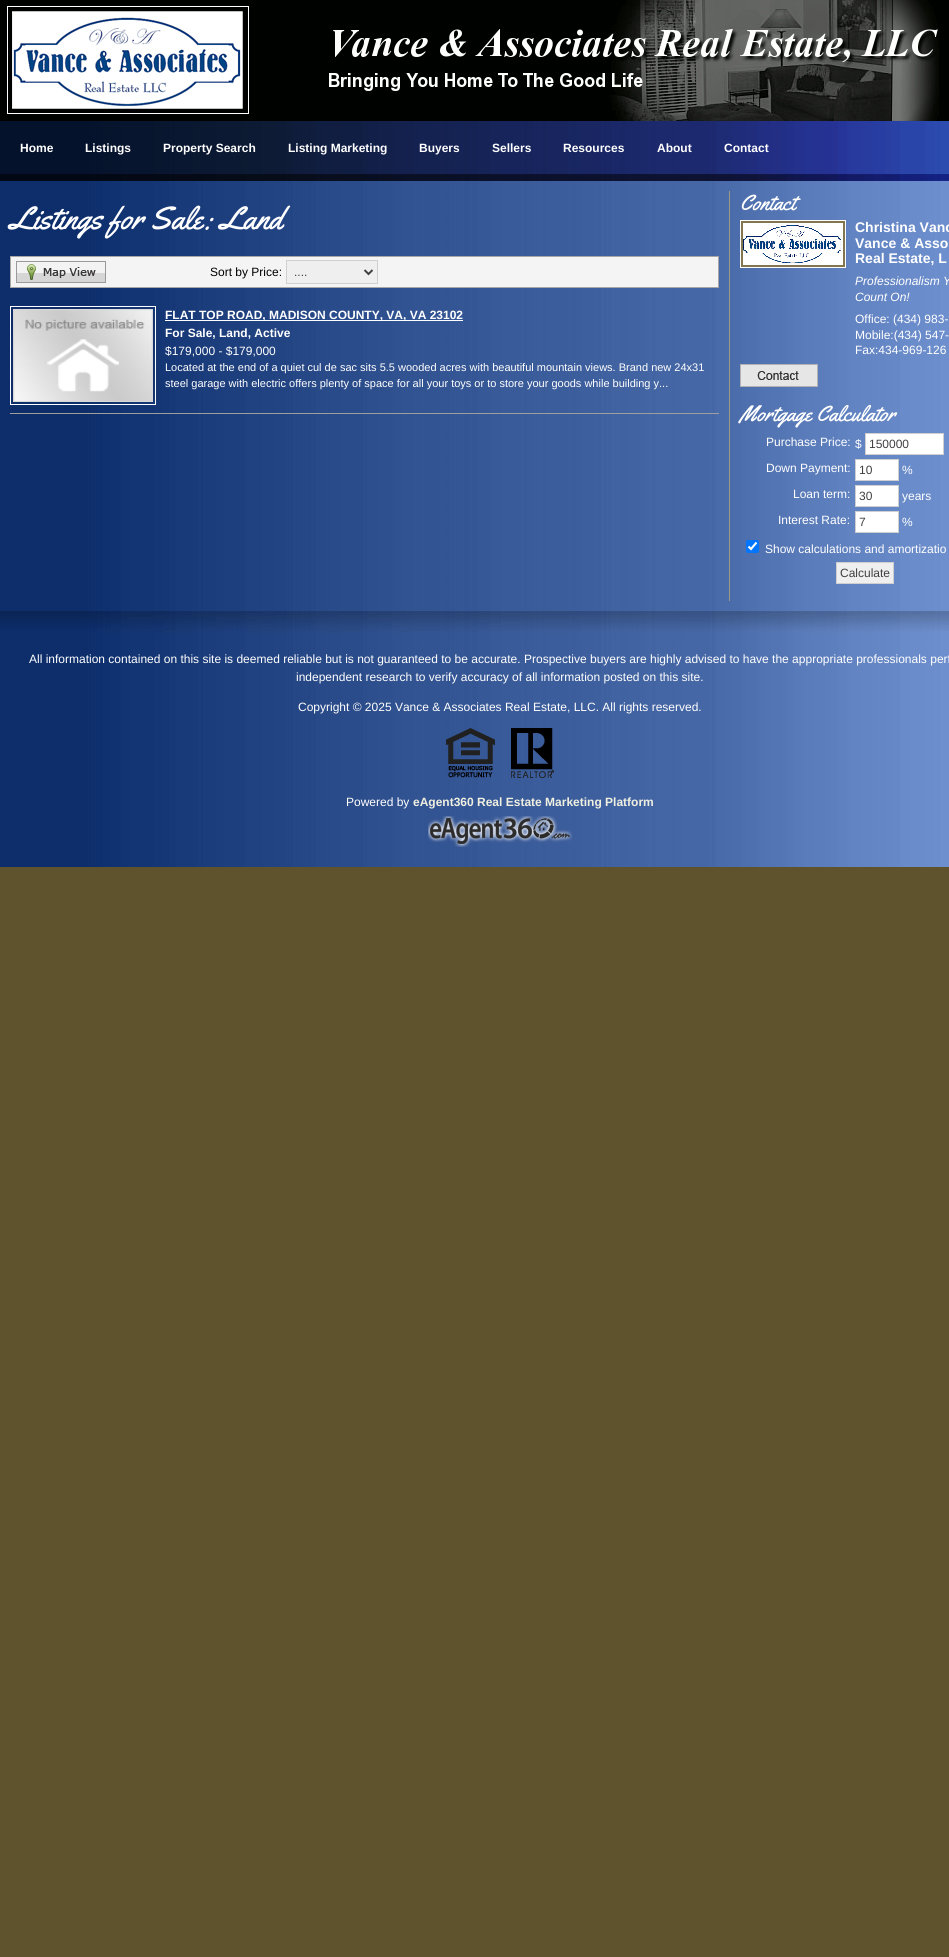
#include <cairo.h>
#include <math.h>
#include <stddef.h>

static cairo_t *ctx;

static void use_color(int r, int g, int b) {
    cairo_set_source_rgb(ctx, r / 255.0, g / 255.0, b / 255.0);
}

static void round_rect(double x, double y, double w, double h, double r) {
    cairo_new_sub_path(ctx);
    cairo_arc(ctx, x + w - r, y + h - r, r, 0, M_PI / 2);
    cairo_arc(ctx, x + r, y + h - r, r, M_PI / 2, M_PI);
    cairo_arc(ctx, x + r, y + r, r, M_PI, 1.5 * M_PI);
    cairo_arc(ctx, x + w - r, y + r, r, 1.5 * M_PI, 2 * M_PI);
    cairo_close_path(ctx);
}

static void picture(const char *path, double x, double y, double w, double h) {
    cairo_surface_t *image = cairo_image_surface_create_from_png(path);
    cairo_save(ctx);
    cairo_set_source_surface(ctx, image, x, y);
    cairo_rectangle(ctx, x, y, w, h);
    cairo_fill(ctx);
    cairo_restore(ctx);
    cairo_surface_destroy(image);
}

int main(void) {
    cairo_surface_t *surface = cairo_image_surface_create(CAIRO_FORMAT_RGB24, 949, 1957);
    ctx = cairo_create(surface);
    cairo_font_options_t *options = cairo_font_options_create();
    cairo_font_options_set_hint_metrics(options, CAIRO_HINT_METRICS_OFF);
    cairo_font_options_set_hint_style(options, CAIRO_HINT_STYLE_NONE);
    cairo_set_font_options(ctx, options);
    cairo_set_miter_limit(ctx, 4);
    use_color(94, 83, 44);
    cairo_paint(ctx);
    picture("img1.png", 0, 0, 949, 121);
    picture("img2.png", 0, 121, 949, 60);
    cairo_select_font_face(ctx, "Liberation Sans", CAIRO_FONT_SLANT_NORMAL, CAIRO_FONT_WEIGHT_BOLD);
    cairo_set_font_size(ctx, 12);
    use_color(255, 255, 255);
    cairo_move_to(ctx, 20, 152);
    cairo_show_text(ctx, "Home");
    cairo_move_to(ctx, 85, 152);
    cairo_show_text(ctx, "Listings");
    cairo_move_to(ctx, 163, 152);
    cairo_show_text(ctx, "Property Search");
    cairo_move_to(ctx, 288, 152);
    cairo_show_text(ctx, "Listing Marketing");
    cairo_move_to(ctx, 419, 152);
    cairo_show_text(ctx, "Buyers");
    cairo_move_to(ctx, 492, 152);
    cairo_show_text(ctx, "Sellers");
    cairo_move_to(ctx, 563, 152);
    cairo_show_text(ctx, "Resources");
    cairo_move_to(ctx, 657, 152);
    cairo_show_text(ctx, "About");
    cairo_move_to(ctx, 724, 152);
    cairo_show_text(ctx, "Contact");
    picture("img3.png", 0, 181, 949, 686);
    cairo_select_font_face(ctx, "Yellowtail", CAIRO_FONT_SLANT_NORMAL, CAIRO_FONT_WEIGHT_NORMAL);
    cairo_set_font_size(ctx, 32);
    cairo_move_to(ctx, 10, 229);
    cairo_show_text(ctx, "Listings for Sale: Land");
    use_color(244, 244, 244);
    cairo_rectangle(ctx, 10.5, 256.5, 708, 31);
    cairo_fill_preserve(ctx);
    use_color(166, 166, 166);
    cairo_set_line_width(ctx, 1);
    cairo_stroke(ctx);
    picture("img4.png", 16, 261, 90, 22);
    cairo_select_font_face(ctx, "Liberation Sans", CAIRO_FONT_SLANT_NORMAL, CAIRO_FONT_WEIGHT_NORMAL);
    cairo_set_font_size(ctx, 12);
    use_color(0, 0, 0);
    cairo_move_to(ctx, 210, 276);
    cairo_show_text(ctx, "Sort by Price:");
    use_color(239, 239, 239);
    cairo_rectangle(ctx, 286.5, 260.5, 91, 23);
    cairo_fill_preserve(ctx);
    use_color(207, 207, 207);
    cairo_stroke(ctx);
    cairo_new_path(ctx);
    cairo_move_to(ctx, 364.5, 270);
    cairo_line_to(ctx, 368.5, 274);
    cairo_line_to(ctx, 372.5, 270);
    use_color(64, 64, 64);
    cairo_set_line_width(ctx, 2);
    cairo_stroke(ctx);
    cairo_move_to(ctx, 294, 276);
    cairo_show_text(ctx, "....");
    use_color(159, 159, 159);
    cairo_rectangle(ctx, 10, 413, 709, 1);
    cairo_fill(ctx);
    cairo_rectangle(ctx, 10.5, 306.5, 145, 98);
    use_color(255, 255, 255);
    cairo_set_line_width(ctx, 1);
    cairo_stroke(ctx);
    picture("img5.png", 13, 309, 140, 93);
    cairo_rectangle(ctx, 165, 320, 298, 1);
    cairo_fill(ctx);
    cairo_select_font_face(ctx, "Liberation Sans", CAIRO_FONT_SLANT_NORMAL, CAIRO_FONT_WEIGHT_BOLD);
    cairo_move_to(ctx, 165, 319);
    cairo_show_text(ctx, "FLAT TOP ROAD, MADISON COUNTY, VA, VA 23102");
    cairo_move_to(ctx, 165, 337);
    cairo_show_text(ctx, "For Sale, Land, Active");
    cairo_select_font_face(ctx, "Liberation Sans", CAIRO_FONT_SLANT_NORMAL, CAIRO_FONT_WEIGHT_NORMAL);
    cairo_move_to(ctx, 165, 355);
    cairo_show_text(ctx, "$179,000 - $179,000");
    cairo_set_font_size(ctx, 11);
    cairo_move_to(ctx, 165, 371);
    cairo_show_text(ctx, "Located at the end of a quiet cul de sac sits 5.5 wooded acres with beautiful mountain views. Brand new 24x31");
    cairo_move_to(ctx, 165, 387);
    cairo_show_text(ctx, "steel garage with electric offers plenty of space for all your toys or to store your goods while building y...");
    use_color(158, 152, 129);
    cairo_rectangle(ctx, 729, 191, 1, 410);
    cairo_fill(ctx);
    cairo_select_font_face(ctx, "Yellowtail", CAIRO_FONT_SLANT_NORMAL, CAIRO_FONT_WEIGHT_NORMAL);
    cairo_set_font_size(ctx, 22);
    use_color(255, 255, 255);
    cairo_move_to(ctx, 740, 210);
    cairo_show_text(ctx, "Contact");
    use_color(129, 118, 78);
    cairo_rectangle(ctx, 740.5, 220.5, 105, 47);
    cairo_fill_preserve(ctx);
    use_color(255, 255, 255);
    cairo_stroke(ctx);
    picture("img6.png", 743, 223, 100, 42);
    cairo_select_font_face(ctx, "Liberation Sans", CAIRO_FONT_SLANT_NORMAL, CAIRO_FONT_WEIGHT_BOLD);
    cairo_set_font_size(ctx, 14);
    cairo_move_to(ctx, 855, 232);
    cairo_show_text(ctx, "Christina Vanc");
    cairo_move_to(ctx, 855, 248);
    cairo_show_text(ctx, "Vance & Asso");
    cairo_move_to(ctx, 855, 263);
    cairo_show_text(ctx, "Real Estate, L");
    cairo_select_font_face(ctx, "Liberation Sans", CAIRO_FONT_SLANT_ITALIC, CAIRO_FONT_WEIGHT_NORMAL);
    cairo_set_font_size(ctx, 12);
    cairo_move_to(ctx, 855, 285);
    cairo_show_text(ctx, "Professionalism Y");
    cairo_move_to(ctx, 855, 301);
    cairo_show_text(ctx, "Count On!");
    cairo_select_font_face(ctx, "Liberation Sans", CAIRO_FONT_SLANT_NORMAL, CAIRO_FONT_WEIGHT_NORMAL);
    cairo_move_to(ctx, 855, 323);
    cairo_show_text(ctx, "Office: (434) 983-");
    cairo_move_to(ctx, 855, 339);
    cairo_show_text(ctx, "Mobile:(434) 547-");
    cairo_move_to(ctx, 855, 354);
    cairo_show_text(ctx, "Fax:434-969-126");
    picture("img7.png", 740, 364, 78, 23);
    cairo_select_font_face(ctx, "Yellowtail", CAIRO_FONT_SLANT_NORMAL, CAIRO_FONT_WEIGHT_NORMAL);
    cairo_set_font_size(ctx, 22);
    cairo_move_to(ctx, 740, 421);
    cairo_show_text(ctx, "Mortgage Calculator");
    cairo_select_font_face(ctx, "Liberation Sans", CAIRO_FONT_SLANT_NORMAL, CAIRO_FONT_WEIGHT_NORMAL);
    cairo_set_font_size(ctx, 12);
    cairo_move_to(ctx, 766, 446);
    cairo_show_text(ctx, "Purchase Price:");
    cairo_move_to(ctx, 855, 448);
    cairo_show_text(ctx, "$");
    cairo_rectangle(ctx, 865.5, 433.5, 78, 21);
    cairo_fill_preserve(ctx);
    use_color(207, 207, 207);
    cairo_stroke(ctx);
    use_color(64, 64, 64);
    cairo_move_to(ctx, 869, 448);
    cairo_show_text(ctx, "150000");
    use_color(255, 255, 255);
    cairo_move_to(ctx, 766, 472);
    cairo_show_text(ctx, "Down Payment:");
    cairo_rectangle(ctx, 855.5, 459.5, 43, 21);
    cairo_fill_preserve(ctx);
    use_color(207, 207, 207);
    cairo_stroke(ctx);
    use_color(64, 64, 64);
    cairo_move_to(ctx, 859, 474);
    cairo_show_text(ctx, "10");
    use_color(255, 255, 255);
    cairo_move_to(ctx, 902, 474);
    cairo_show_text(ctx, "%");
    cairo_move_to(ctx, 793, 498);
    cairo_show_text(ctx, "Loan term:");
    cairo_rectangle(ctx, 855.5, 485.5, 43, 21);
    cairo_fill_preserve(ctx);
    use_color(207, 207, 207);
    cairo_stroke(ctx);
    use_color(64, 64, 64);
    cairo_move_to(ctx, 859, 500);
    cairo_show_text(ctx, "30");
    use_color(255, 255, 255);
    cairo_move_to(ctx, 902, 500);
    cairo_show_text(ctx, "years");
    cairo_move_to(ctx, 778, 524);
    cairo_show_text(ctx, "Interest Rate:");
    cairo_rectangle(ctx, 855.5, 511.5, 43, 21);
    cairo_fill_preserve(ctx);
    use_color(207, 207, 207);
    cairo_stroke(ctx);
    use_color(64, 64, 64);
    cairo_move_to(ctx, 859, 526);
    cairo_show_text(ctx, "7");
    use_color(255, 255, 255);
    cairo_move_to(ctx, 902, 526);
    cairo_show_text(ctx, "%");
    use_color(0, 117, 255);
    round_rect(746, 540, 13, 13, 2);
    cairo_fill(ctx);
    cairo_new_path(ctx);
    cairo_move_to(ctx, 748.5, 546.5);
    cairo_line_to(ctx, 751, 549);
    cairo_line_to(ctx, 756.5, 542.5);
    use_color(255, 255, 255);
    cairo_set_line_width(ctx, 2.1);
    cairo_stroke(ctx);
    cairo_move_to(ctx, 765, 553);
    cairo_show_text(ctx, "Show calculations and amortizatio");
    use_color(239, 239, 239);
    cairo_rectangle(ctx, 836.5, 562.5, 57, 21);
    cairo_fill_preserve(ctx);
    use_color(207, 207, 207);
    cairo_set_line_width(ctx, 1);
    cairo_stroke(ctx);
    use_color(64, 64, 64);
    cairo_move_to(ctx, 840, 577);
    cairo_show_text(ctx, "Calculate");
    picture("img8.png", 0, 611, 949, 22);
    use_color(255, 255, 255);
    cairo_move_to(ctx, 29, 663);
    cairo_show_text(ctx, "All information contained on this site is deemed reliable but is not guaranteed to be accurate. Prospective buyers are highly advised to have the appropriate professionals perf");
    cairo_move_to(ctx, 296, 681);
    cairo_show_text(ctx, "independent research to verify accuracy of all information posted on this site.");
    cairo_move_to(ctx, 298, 711);
    cairo_show_text(ctx, "Copyright © 2025 Vance & Associates Real Estate, LLC. All rights reserved.");
    picture("img9.png", 446, 728, 49, 50);
    picture("img10.png", 511, 728, 43, 50);
    cairo_move_to(ctx, 346, 806);
    cairo_show_text(ctx, "Powered by");
    cairo_select_font_face(ctx, "Liberation Sans", CAIRO_FONT_SLANT_NORMAL, CAIRO_FONT_WEIGHT_BOLD);
    use_color(240, 240, 225);
    cairo_move_to(ctx, 413, 806);
    cairo_show_text(ctx, "eAgent360 Real Estate Marketing Platform");
    picture("img11.png", 428, 816, 145, 31);
    cairo_surface_write_to_png(surface, "result.png");
    cairo_font_options_destroy(options);
    cairo_destroy(ctx);
    cairo_surface_destroy(surface);
    return 0;
}
